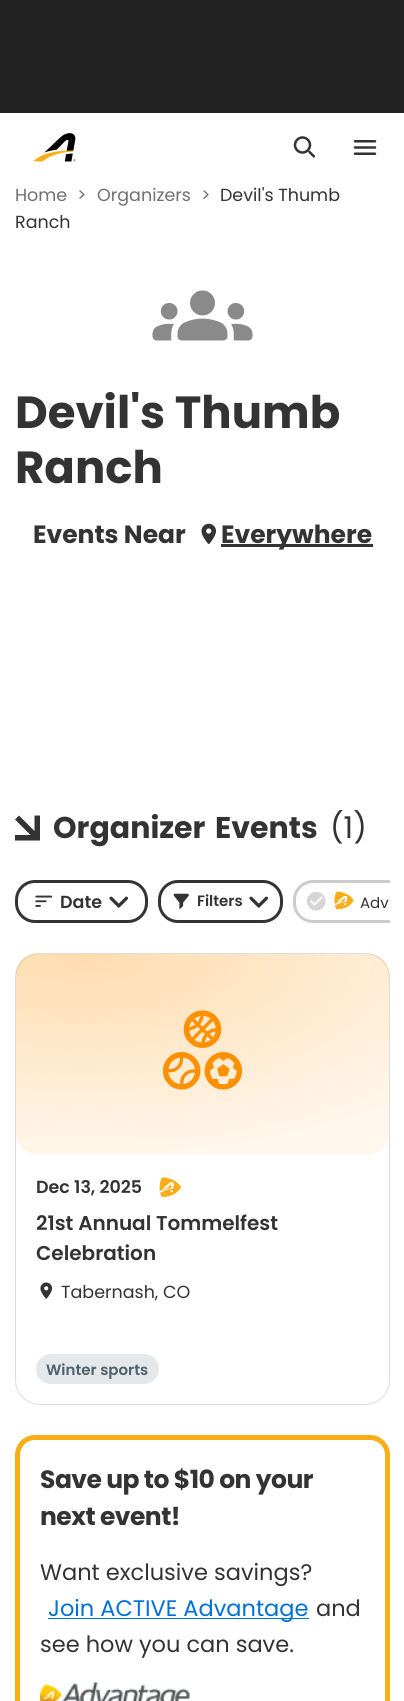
#include <cairo.h>
#include <math.h>
#include <stddef.h>

static cairo_t *ctx;

static void use_color(int r, int g, int b) {
    cairo_set_source_rgb(ctx, r / 255.0, g / 255.0, b / 255.0);
}

static void spaced_text(double x, double y, const char *s, double letter, double word) {
    cairo_move_to(ctx, x, y);
    while (*s) {
        char ch[5] = {0};
        int n = 0;
        do ch[n++] = *s++; while ((*s & 0xC0) == 0x80);
        cairo_show_text(ctx, ch);
        cairo_rel_move_to(ctx, letter + word * (*ch == ' '), 0);
    }
}

static void round_rect(double x, double y, double w, double h, double r) {
    cairo_new_sub_path(ctx);
    cairo_arc(ctx, x + w - r, y + h - r, r, 0, M_PI / 2);
    cairo_arc(ctx, x + r, y + h - r, r, M_PI / 2, M_PI);
    cairo_arc(ctx, x + r, y + r, r, M_PI, 1.5 * M_PI);
    cairo_arc(ctx, x + w - r, y + r, r, 1.5 * M_PI, 2 * M_PI);
    cairo_close_path(ctx);
}

static void picture(const char *path, double x, double y, double w, double h) {
    cairo_surface_t *image = cairo_image_surface_create_from_png(path);
    cairo_save(ctx);
    cairo_set_source_surface(ctx, image, x, y);
    cairo_rectangle(ctx, x, y, w, h);
    cairo_fill(ctx);
    cairo_restore(ctx);
    cairo_surface_destroy(image);
}

int main(void) {
    cairo_surface_t *surface = cairo_image_surface_create(CAIRO_FORMAT_RGB24, 404, 1701);
    ctx = cairo_create(surface);
    cairo_font_options_t *options = cairo_font_options_create();
    cairo_font_options_set_hint_metrics(options, CAIRO_HINT_METRICS_OFF);
    cairo_font_options_set_hint_style(options, CAIRO_HINT_STYLE_NONE);
    cairo_set_font_options(ctx, options);
    cairo_set_miter_limit(ctx, 4);
    cairo_pattern_t *gradient;
    use_color(255, 255, 255);
    cairo_paint(ctx);
    use_color(34, 34, 34);
    cairo_rectangle(ctx, 0, 0, 404, 113);
    cairo_fill(ctx);
    picture("img1.png", 33, 133, 43, 29);
    picture("img2.png", 293, 136, 23, 22);
    picture("img3.png", 353, 140, 24, 15);
    cairo_select_font_face(ctx, "Poppins", CAIRO_FONT_SLANT_NORMAL, CAIRO_FONT_WEIGHT_NORMAL);
    cairo_set_font_size(ctx, 17.5);
    use_color(112, 112, 112);
    cairo_move_to(ctx, 15, 201);
    cairo_show_text(ctx, "Home");
    cairo_move_to(ctx, 77, 201);
    cairo_show_text(ctx, ">");
    cairo_move_to(ctx, 97, 201);
    cairo_show_text(ctx, "Organizers");
    cairo_move_to(ctx, 201, 201);
    cairo_show_text(ctx, ">");
    use_color(51, 51, 51);
    cairo_move_to(ctx, 220, 201);
    cairo_show_text(ctx, "Devil's Thumb");
    cairo_move_to(ctx, 15, 228);
    cairo_show_text(ctx, "Ranch");
    picture("img4.png", 152, 290, 101, 51);
    cairo_select_font_face(ctx, "Poppins", CAIRO_FONT_SLANT_NORMAL, CAIRO_FONT_WEIGHT_BOLD);
    cairo_set_font_size(ctx, 45);
    cairo_move_to(ctx, 15, 428);
    cairo_show_text(ctx, "Devil's Thumb");
    cairo_move_to(ctx, 15, 483);
    cairo_show_text(ctx, "Ranch");
    cairo_set_font_size(ctx, 25);
    cairo_move_to(ctx, 33, 543);
    cairo_show_text(ctx, "Events Near");
    picture("img5.png", 201, 523, 15, 21);
    cairo_rectangle(ctx, 221, 544, 152, 3);
    cairo_fill(ctx);
    cairo_move_to(ctx, 221, 543);
    cairo_show_text(ctx, "Everywhere");
    cairo_new_path(ctx);
    cairo_move_to(ctx, 40, 815.5);
    cairo_line_to(ctx, 40, 840.5);
    cairo_line_to(ctx, 15, 840.5);
    cairo_line_to(ctx, 15, 835);
    cairo_line_to(ctx, 30.5, 835);
    cairo_line_to(ctx, 15, 819.5);
    cairo_line_to(ctx, 19, 815.5);
    cairo_line_to(ctx, 34.5, 831);
    cairo_line_to(ctx, 34.5, 815.5);
    cairo_close_path(ctx);
    cairo_fill(ctx);
    cairo_set_font_size(ctx, 30);
    cairo_move_to(ctx, 53, 838);
    cairo_show_text(ctx, "Organizer");
    cairo_move_to(ctx, 215, 838);
    cairo_show_text(ctx, "Events");
    cairo_select_font_face(ctx, "Poppins", CAIRO_FONT_SLANT_NORMAL, CAIRO_FONT_WEIGHT_NORMAL);
    cairo_move_to(ctx, 330, 838);
    cairo_show_text(ctx, "(1)");
    round_rect(16.5, 881.5, 130, 40, 18.5);
    cairo_set_line_width(ctx, 3);
    cairo_stroke(ctx);
    picture("img6.png", 35, 895, 18, 12);
    cairo_select_font_face(ctx, "Poppins SemiBold", CAIRO_FONT_SLANT_NORMAL, CAIRO_FONT_WEIGHT_NORMAL);
    cairo_set_font_size(ctx, 17.5);
    cairo_move_to(ctx, 60, 908);
    cairo_show_text(ctx, "Date");
    picture("img7.png", 109, 896, 20, 12);
    round_rect(159.5, 881.5, 122, 40, 18.5);
    cairo_stroke(ctx);
    picture("img8.png", 173, 893, 16, 16);
    cairo_set_font_size(ctx, 15);
    cairo_move_to(ctx, 197, 906);
    cairo_show_text(ctx, "Filters");
    picture("img7.png", 249, 896, 20, 12);
    cairo_save(ctx);
    cairo_rectangle(ctx, 15, 850, 375, 103);
    cairo_clip(ctx);
    round_rect(294.5, 881.5, 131, 40, 18.5);
    use_color(204, 204, 204);
    cairo_stroke(ctx);
    cairo_restore(ctx);
    picture("img9.png", 307, 892, 19, 19);
    picture("img10.png", 334, 891, 20, 19);
    cairo_select_font_face(ctx, "Poppins", CAIRO_FONT_SLANT_NORMAL, CAIRO_FONT_WEIGHT_NORMAL);
    cairo_move_to(ctx, 360, 908);
    cairo_show_text(ctx, "Adv");
    round_rect(15.5, 953.5, 374, 451, 24.5);
    use_color(221, 221, 221);
    cairo_set_line_width(ctx, 1);
    cairo_stroke(ctx);
    gradient = cairo_pattern_create_radial(0, 0, 0, 0, 0, 1);
    cairo_pattern_set_matrix(gradient, &(cairo_matrix_t){1.0 / 458, 0, 0, 1.0 / 200, -1.0 * 84 / 458, -1.0 * 954 / 200});
    cairo_pattern_add_color_stop_rgba(gradient, 0, 1, 0.569, 0, 0.32);
    cairo_pattern_add_color_stop_rgba(gradient, 1, 1, 0.569, 0, 0.08);
    cairo_set_source(ctx, gradient);
    cairo_pattern_destroy(gradient);
    round_rect(16, 954, 373, 200, 20);
    cairo_fill(ctx);
    picture("img11.png", 162, 1010, 81, 80);
    cairo_select_font_face(ctx, "Poppins SemiBold", CAIRO_FONT_SLANT_NORMAL, CAIRO_FONT_WEIGHT_NORMAL);
    cairo_set_font_size(ctx, 17.5);
    use_color(51, 51, 51);
    cairo_move_to(ctx, 36, 1193);
    cairo_show_text(ctx, "Dec 13, 2025");
    picture("img12.png", 159, 1177, 22, 20);
    cairo_set_font_size(ctx, 20);
    cairo_move_to(ctx, 36, 1230);
    cairo_show_text(ctx, "21st Annual Tommelfest");
    cairo_move_to(ctx, 36, 1260);
    cairo_show_text(ctx, "Celebration");
    picture("img13.png", 40, 1282, 13, 17);
    cairo_select_font_face(ctx, "Poppins", CAIRO_FONT_SLANT_NORMAL, CAIRO_FONT_WEIGHT_NORMAL);
    cairo_set_font_size(ctx, 17.5);
    cairo_move_to(ctx, 61, 1298);
    cairo_show_text(ctx, "Tabernash, CO");
    use_color(228, 232, 235);
    round_rect(36, 1354, 123, 30, 15);
    cairo_fill(ctx);
    cairo_select_font_face(ctx, "Poppins SemiBold", CAIRO_FONT_SLANT_NORMAL, CAIRO_FONT_WEIGHT_NORMAL);
    cairo_set_font_size(ctx, 15);
    use_color(78, 96, 106);
    cairo_move_to(ctx, 46, 1375);
    cairo_show_text(ctx, "Winter sports");
    round_rect(17.5, 1437.5, 370, 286, 17.5);
    use_color(251, 173, 24);
    cairo_set_line_width(ctx, 5);
    cairo_stroke(ctx);
    cairo_select_font_face(ctx, "Poppins", CAIRO_FONT_SLANT_NORMAL, CAIRO_FONT_WEIGHT_BOLD);
    cairo_set_font_size(ctx, 25);
    use_color(51, 51, 51);
    spaced_text(40, 1488, "Save up to $10 on your", -0.5, 0);
    spaced_text(40, 1525, "next event!", -0.5, 0);
    cairo_select_font_face(ctx, "Poppins", CAIRO_FONT_SLANT_NORMAL, CAIRO_FONT_WEIGHT_NORMAL);
    cairo_set_font_size(ctx, 22.5);
    cairo_move_to(ctx, 40, 1580);
    cairo_show_text(ctx, "Want exclusive savings?");
    use_color(0, 112, 217);
    cairo_rectangle(ctx, 48, 1618, 261, 1);
    cairo_fill(ctx);
    cairo_move_to(ctx, 48, 1616);
    cairo_show_text(ctx, "Join ACTIVE Advantage");
    use_color(51, 51, 51);
    cairo_move_to(ctx, 316, 1616);
    cairo_show_text(ctx, "and");
    cairo_move_to(ctx, 40, 1652);
    cairo_show_text(ctx, "see how you can save.");
    picture("img14.png", 40, 1682, 150, 19);
    cairo_surface_write_to_png(surface, "result.png");
    cairo_font_options_destroy(options);
    cairo_destroy(ctx);
    cairo_surface_destroy(surface);
    return 0;
}
